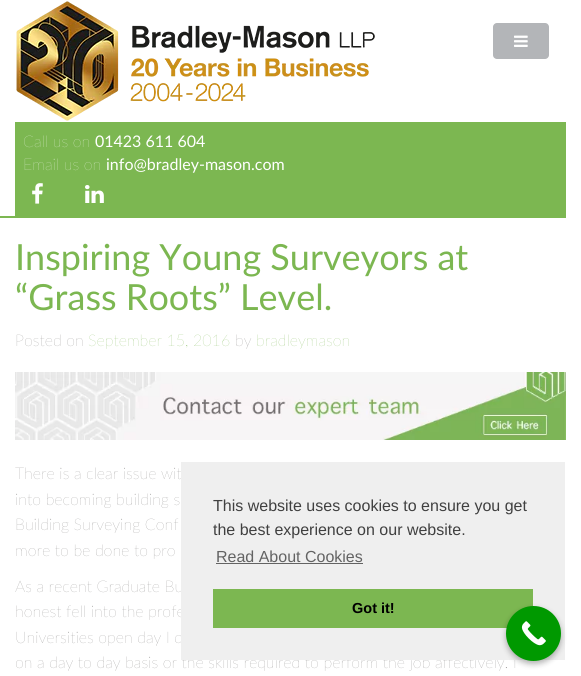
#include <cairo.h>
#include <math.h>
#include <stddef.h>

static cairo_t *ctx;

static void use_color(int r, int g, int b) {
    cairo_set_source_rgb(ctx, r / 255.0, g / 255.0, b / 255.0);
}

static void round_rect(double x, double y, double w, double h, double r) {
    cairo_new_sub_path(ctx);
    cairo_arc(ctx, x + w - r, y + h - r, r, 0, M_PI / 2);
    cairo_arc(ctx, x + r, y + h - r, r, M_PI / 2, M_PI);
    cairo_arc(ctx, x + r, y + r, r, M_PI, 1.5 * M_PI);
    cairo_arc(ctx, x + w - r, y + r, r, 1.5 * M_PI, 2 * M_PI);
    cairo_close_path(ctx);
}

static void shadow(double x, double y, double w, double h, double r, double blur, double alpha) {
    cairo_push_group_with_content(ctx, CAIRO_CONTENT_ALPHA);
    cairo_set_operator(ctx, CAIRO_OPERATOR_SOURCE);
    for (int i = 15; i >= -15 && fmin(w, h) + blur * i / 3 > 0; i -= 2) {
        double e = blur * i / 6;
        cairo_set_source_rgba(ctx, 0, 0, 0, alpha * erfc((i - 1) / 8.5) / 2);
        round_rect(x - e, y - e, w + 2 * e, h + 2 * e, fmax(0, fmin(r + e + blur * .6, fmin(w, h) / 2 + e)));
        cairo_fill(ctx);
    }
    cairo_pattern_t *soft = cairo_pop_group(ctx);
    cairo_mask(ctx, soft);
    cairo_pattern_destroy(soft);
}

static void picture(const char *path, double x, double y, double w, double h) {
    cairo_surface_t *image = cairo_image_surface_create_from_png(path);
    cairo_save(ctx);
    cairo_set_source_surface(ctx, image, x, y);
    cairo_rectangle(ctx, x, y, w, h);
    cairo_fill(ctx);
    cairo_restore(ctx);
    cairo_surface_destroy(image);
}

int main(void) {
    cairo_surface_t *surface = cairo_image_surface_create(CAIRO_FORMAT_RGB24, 581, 676);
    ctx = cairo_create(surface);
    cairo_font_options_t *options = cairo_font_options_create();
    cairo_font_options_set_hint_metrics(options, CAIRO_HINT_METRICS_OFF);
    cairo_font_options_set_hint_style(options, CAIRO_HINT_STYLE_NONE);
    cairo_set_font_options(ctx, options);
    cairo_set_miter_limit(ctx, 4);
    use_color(255, 255, 255);
    cairo_paint(ctx);
    use_color(179, 181, 184);
    round_rect(493, 23, 56, 36, 4);
    cairo_fill(ctx);
    picture("img1.png", 514, 35, 14, 12);
    picture("img2.png", 16, 1, 359, 120);
    use_color(124, 183, 81);
    cairo_rectangle(ctx, 15, 122, 551, 94);
    cairo_fill(ctx);
    cairo_select_font_face(ctx, "Lato ExtraLight", CAIRO_FONT_SLANT_NORMAL, CAIRO_FONT_WEIGHT_NORMAL);
    cairo_set_font_size(ctx, 16);
    use_color(255, 255, 255);
    cairo_move_to(ctx, 23, 147);
    cairo_show_text(ctx, "Call us on");
    cairo_select_font_face(ctx, "Lato", CAIRO_FONT_SLANT_NORMAL, CAIRO_FONT_WEIGHT_NORMAL);
    cairo_move_to(ctx, 95, 147);
    cairo_show_text(ctx, "01423 611 604");
    cairo_select_font_face(ctx, "Lato ExtraLight", CAIRO_FONT_SLANT_NORMAL, CAIRO_FONT_WEIGHT_NORMAL);
    cairo_move_to(ctx, 23, 170);
    cairo_show_text(ctx, "Email us on");
    cairo_select_font_face(ctx, "Lato", CAIRO_FONT_SLANT_NORMAL, CAIRO_FONT_WEIGHT_NORMAL);
    cairo_move_to(ctx, 106, 170);
    cairo_show_text(ctx, "info@bradley-mason.com");
    picture("img3.png", 32, 183, 11, 21);
    picture("img4.png", 85, 185, 19, 18);
    use_color(124, 183, 81);
    cairo_rectangle(ctx, 0, 216, 566, 2);
    cairo_fill(ctx);
    cairo_set_font_size(ctx, 36);
    cairo_move_to(ctx, 15, 270);
    cairo_show_text(ctx, "Inspiring Young Surveyors at");
    cairo_move_to(ctx, 15, 310);
    cairo_show_text(ctx, "“Grass Roots” Level.");
    cairo_select_font_face(ctx, "Lato ExtraLight", CAIRO_FONT_SLANT_NORMAL, CAIRO_FONT_WEIGHT_NORMAL);
    cairo_set_font_size(ctx, 16);
    use_color(120, 118, 117);
    cairo_move_to(ctx, 15, 346);
    cairo_show_text(ctx, "Posted on");
    use_color(124, 183, 81);
    cairo_move_to(ctx, 88, 346);
    cairo_show_text(ctx, "September 15, 2016");
    use_color(120, 118, 117);
    cairo_move_to(ctx, 235, 346);
    cairo_show_text(ctx, "by");
    use_color(124, 183, 81);
    cairo_move_to(ctx, 256, 346);
    cairo_show_text(ctx, "bradleymason");
    picture("img5.png", 15, 372, 551, 68);
    use_color(120, 118, 117);
    cairo_move_to(ctx, 15, 479);
    cairo_show_text(ctx, "There is a clear issue wit");
    cairo_move_to(ctx, 15, 505);
    cairo_show_text(ctx, "into becoming building s");
    cairo_move_to(ctx, 15, 530);
    cairo_show_text(ctx, "Building Surveying Conf");
    cairo_move_to(ctx, 15, 556);
    cairo_show_text(ctx, "more to be done to pro");
    cairo_move_to(ctx, 15, 592);
    cairo_show_text(ctx, "As a recent Graduate Bu");
    cairo_move_to(ctx, 15, 617);
    cairo_show_text(ctx, "honest fell into the profe");
    cairo_move_to(ctx, 15, 643);
    cairo_show_text(ctx, "Universities open day I d");
    cairo_move_to(ctx, 15, 668);
    cairo_show_text(ctx, "on a day to day basis or the skills required to perform the job affectively. I");
    use_color(239, 239, 239);
    cairo_rectangle(ctx, 181, 462, 384, 198);
    cairo_fill(ctx);
    cairo_select_font_face(ctx, "Liberation Sans", CAIRO_FONT_SLANT_NORMAL, CAIRO_FONT_WEIGHT_NORMAL);
    use_color(64, 64, 64);
    cairo_move_to(ctx, 213, 511);
    cairo_show_text(ctx, "This website uses cookies to ensure you get");
    cairo_move_to(ctx, 213, 535);
    cairo_show_text(ctx, "the best experience on our website.");
    use_color(99, 99, 99);
    cairo_move_to(ctx, 216, 562);
    cairo_show_text(ctx, "Read About Cookies");
    cairo_rectangle(ctx, 216, 563, 147, 1);
    cairo_fill(ctx);
    use_color(124, 183, 81);
    cairo_rectangle(ctx, 213, 589, 320, 39);
    cairo_fill(ctx);
    cairo_select_font_face(ctx, "Liberation Sans", CAIRO_FONT_SLANT_NORMAL, CAIRO_FONT_WEIGHT_BOLD);
    cairo_set_font_size(ctx, 14.5);
    use_color(0, 0, 0);
    cairo_move_to(ctx, 352, 613);
    cairo_show_text(ctx, "Got it!");
    use_color(0, 0, 0);
    shadow(506, 609, 55, 55, 27.5, 3, 0.3);
    use_color(0, 153, 0);
    cairo_arc(ctx, 533.5, 633.5, 27.5, 0, 2 * M_PI);
    cairo_fill(ctx);
    picture("img6.png", 521, 621, 25, 25);
    cairo_surface_write_to_png(surface, "result.png");
    cairo_font_options_destroy(options);
    cairo_destroy(ctx);
    cairo_surface_destroy(surface);
    return 0;
}
